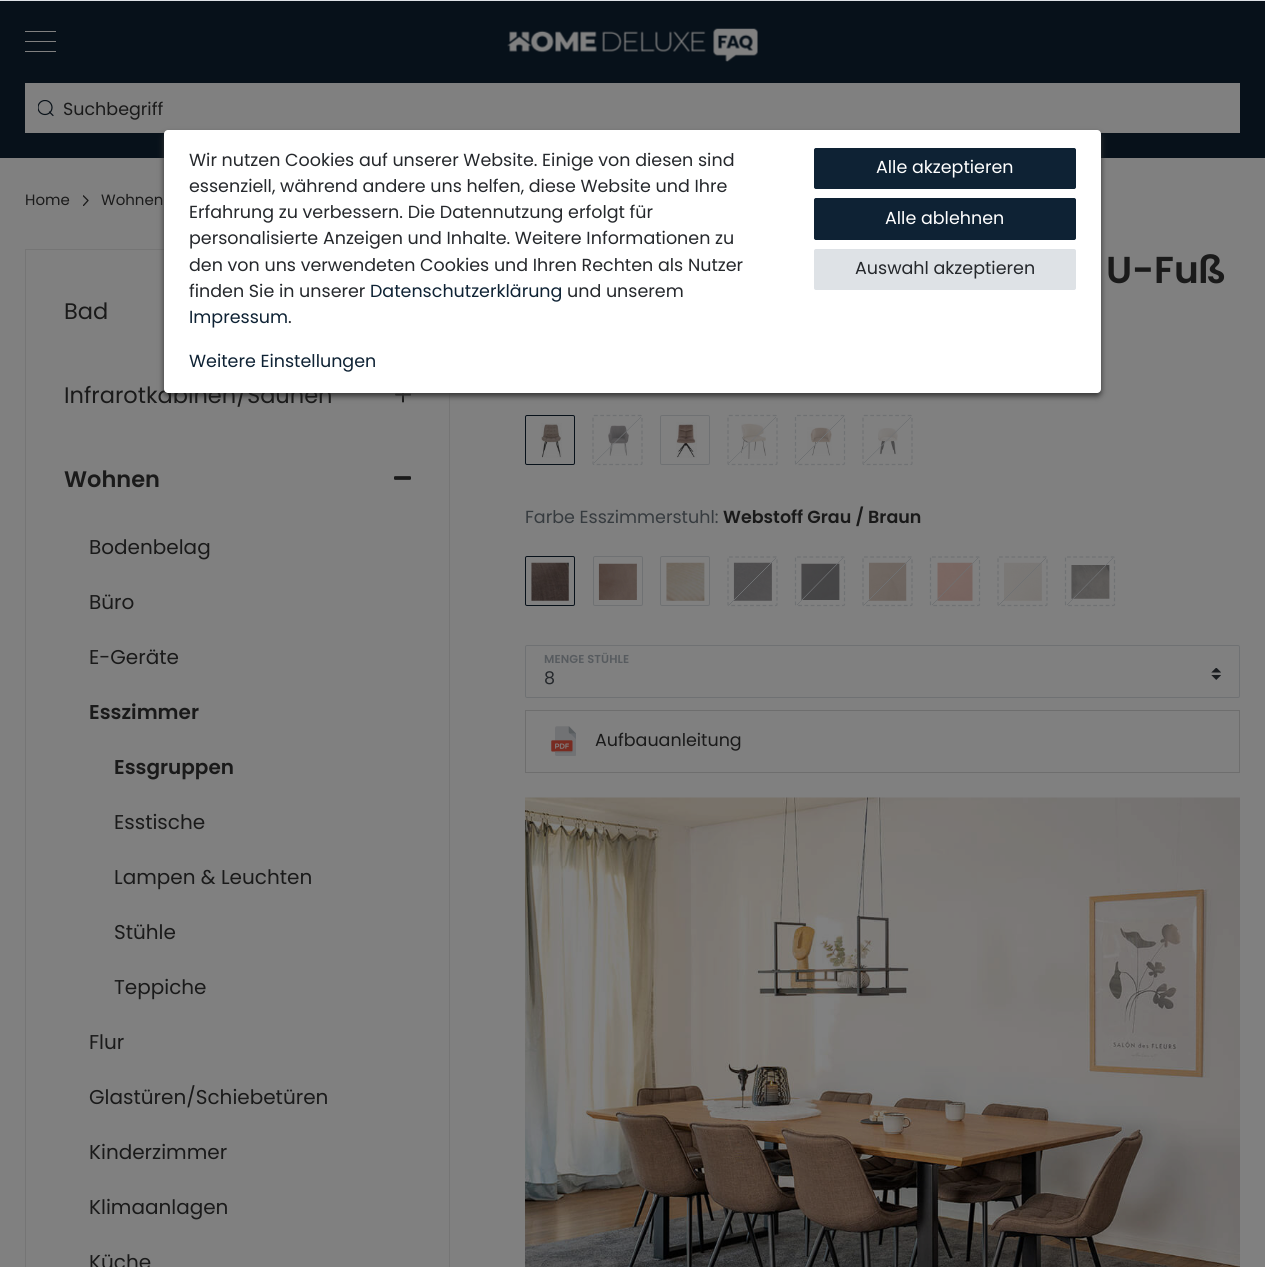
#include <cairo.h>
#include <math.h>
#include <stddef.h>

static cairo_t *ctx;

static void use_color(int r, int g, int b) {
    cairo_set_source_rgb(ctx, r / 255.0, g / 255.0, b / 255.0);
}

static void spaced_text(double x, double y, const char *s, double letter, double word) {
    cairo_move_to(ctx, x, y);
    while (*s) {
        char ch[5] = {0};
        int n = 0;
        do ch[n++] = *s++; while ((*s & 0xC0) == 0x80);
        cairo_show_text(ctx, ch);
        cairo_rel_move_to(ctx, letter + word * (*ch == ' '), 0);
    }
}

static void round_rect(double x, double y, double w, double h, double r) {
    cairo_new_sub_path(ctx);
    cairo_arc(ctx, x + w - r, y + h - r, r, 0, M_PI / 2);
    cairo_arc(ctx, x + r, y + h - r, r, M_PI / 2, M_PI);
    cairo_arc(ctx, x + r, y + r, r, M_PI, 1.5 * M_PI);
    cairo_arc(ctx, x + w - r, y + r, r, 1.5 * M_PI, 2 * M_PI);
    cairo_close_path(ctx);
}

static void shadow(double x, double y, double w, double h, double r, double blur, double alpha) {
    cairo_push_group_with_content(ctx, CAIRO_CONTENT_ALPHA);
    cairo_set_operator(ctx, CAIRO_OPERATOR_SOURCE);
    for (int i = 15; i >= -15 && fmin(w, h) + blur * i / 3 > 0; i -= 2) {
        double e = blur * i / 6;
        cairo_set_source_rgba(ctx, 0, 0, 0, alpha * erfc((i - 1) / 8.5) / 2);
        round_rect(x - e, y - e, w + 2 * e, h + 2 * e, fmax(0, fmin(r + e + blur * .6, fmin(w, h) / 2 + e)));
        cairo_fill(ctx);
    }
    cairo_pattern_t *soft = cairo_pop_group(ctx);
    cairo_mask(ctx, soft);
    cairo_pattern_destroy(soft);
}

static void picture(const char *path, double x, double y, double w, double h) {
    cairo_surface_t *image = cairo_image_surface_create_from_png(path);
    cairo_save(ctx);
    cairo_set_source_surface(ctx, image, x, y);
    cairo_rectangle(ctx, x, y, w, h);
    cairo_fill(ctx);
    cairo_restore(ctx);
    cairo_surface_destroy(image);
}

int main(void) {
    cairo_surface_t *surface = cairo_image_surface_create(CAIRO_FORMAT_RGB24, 1265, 1267);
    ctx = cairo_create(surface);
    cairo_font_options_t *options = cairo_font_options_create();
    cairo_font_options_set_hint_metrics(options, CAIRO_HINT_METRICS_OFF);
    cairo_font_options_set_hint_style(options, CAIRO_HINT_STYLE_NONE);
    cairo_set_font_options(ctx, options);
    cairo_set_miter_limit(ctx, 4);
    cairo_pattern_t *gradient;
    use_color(128, 128, 128);
    cairo_paint(ctx);
    use_color(7, 17, 26);
    cairo_rectangle(ctx, 0, 1, 1265, 157);
    cairo_fill(ctx);
    use_color(128, 128, 128);
    cairo_rectangle(ctx, 25, 41, 31, 1);
    cairo_fill(ctx);
    cairo_rectangle(ctx, 25, 31, 31, 1);
    cairo_fill(ctx);
    cairo_rectangle(ctx, 25, 51, 31, 1);
    cairo_fill(ctx);
    picture("img1.png", 507, 28, 251, 34);
    cairo_rectangle(ctx, 25, 83, 1215, 50);
    cairo_fill(ctx);
    cairo_save(ctx);
    cairo_rectangle(ctx, 38, 100, 16, 16);
    cairo_clip(ctx);
    cairo_arc(ctx, 45, 107.5, 7, 0, 2 * M_PI);
    use_color(10, 18, 25);
    cairo_set_line_width(ctx, 1.2);
    cairo_stroke(ctx);
    cairo_restore(ctx);
    cairo_new_path(ctx);
    cairo_move_to(ctx, 53, 115.5);
    cairo_line_to(ctx, 49.5, 112);
    use_color(10, 18, 25);
    cairo_set_line_width(ctx, 1.2);
    cairo_set_line_cap(ctx, CAIRO_LINE_CAP_ROUND);
    cairo_set_line_join(ctx, CAIRO_LINE_JOIN_ROUND);
    cairo_stroke(ctx);
    cairo_select_font_face(ctx, "Poppins", CAIRO_FONT_SLANT_NORMAL, CAIRO_FONT_WEIGHT_NORMAL);
    cairo_set_font_size(ctx, 17.5);
    use_color(26, 26, 26);
    cairo_move_to(ctx, 63, 115);
    cairo_show_text(ctx, "Suchbegriff");
    cairo_set_font_size(ctx, 15);
    cairo_move_to(ctx, 25, 205);
    cairo_show_text(ctx, "Home");
    cairo_save(ctx);
    cairo_rectangle(ctx, 83, 195, 6, 11);
    cairo_clip(ctx);
    cairo_new_path(ctx);
    cairo_move_to(ctx, 83, 195.5);
    cairo_line_to(ctx, 88, 200.5);
    cairo_line_to(ctx, 83, 206);
    cairo_set_line_width(ctx, 1.3);
    cairo_set_line_cap(ctx, CAIRO_LINE_CAP_BUTT);
    cairo_stroke(ctx);
    cairo_restore(ctx);
    cairo_move_to(ctx, 101, 205);
    cairo_show_text(ctx, "Wohnen");
    use_color(222, 226, 230);
    cairo_rectangle(ctx, 0, 0, 1265, 1);
    cairo_fill(ctx);
    cairo_rectangle(ctx, 25.5, 249.5, 424, 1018);
    use_color(117, 117, 117);
    cairo_set_line_width(ctx, 1);
    cairo_set_line_cap(ctx, CAIRO_LINE_CAP_BUTT);
    cairo_set_line_join(ctx, CAIRO_LINE_JOIN_MITER);
    cairo_stroke(ctx);
    cairo_save(ctx);
    cairo_rectangle(ctx, 395, 386, 16, 17);
    cairo_clip(ctx);
    cairo_new_path(ctx);
    cairo_move_to(ctx, 396, 394.5);
    cairo_line_to(ctx, 410.5, 394.5);
    cairo_move_to(ctx, 403, 401.5);
    cairo_line_to(ctx, 403, 387);
    use_color(26, 26, 26);
    cairo_set_line_width(ctx, 2);
    cairo_set_line_cap(ctx, CAIRO_LINE_CAP_ROUND);
    cairo_set_line_join(ctx, CAIRO_LINE_JOIN_ROUND);
    cairo_stroke(ctx);
    cairo_restore(ctx);
    use_color(51, 51, 51);
    shadow(164, 134, 937, 262, 4, 3, 1);
    cairo_set_font_size(ctx, 22.5);
    use_color(26, 26, 26);
    cairo_move_to(ctx, 64, 403);
    cairo_show_text(ctx, "Infrarotkabinen/Saunen");
    use_color(255, 255, 255);
    round_rect(164, 130, 937, 263, 4);
    cairo_fill(ctx);
    cairo_set_font_size(ctx, 17.5);
    use_color(37, 40, 44);
    cairo_move_to(ctx, 189, 166);
    cairo_show_text(ctx, "Wir nutzen Cookies auf unserer Website. Einige von diesen sind");
    cairo_move_to(ctx, 189, 192);
    cairo_show_text(ctx, "essenziell, während andere uns helfen, diese Website und Ihre");
    cairo_move_to(ctx, 189, 218);
    cairo_show_text(ctx, "Erfahrung zu verbessern. Die Datennutzung erfolgt für");
    cairo_move_to(ctx, 189, 244);
    cairo_show_text(ctx, "personalisierte Anzeigen und Inhalte. Weitere Informationen zu");
    cairo_move_to(ctx, 189, 271);
    cairo_show_text(ctx, "den von uns verwendeten Cookies und Ihren Rechten als Nutzer");
    cairo_move_to(ctx, 189, 297);
    cairo_show_text(ctx, "finden Sie in unserer");
    use_color(14, 34, 52);
    cairo_move_to(ctx, 370, 297);
    cairo_show_text(ctx, "Datenschutzerklärung");
    use_color(37, 40, 44);
    cairo_move_to(ctx, 567, 297);
    cairo_show_text(ctx, "und unserem");
    use_color(14, 34, 52);
    cairo_move_to(ctx, 189, 323);
    cairo_show_text(ctx, "Impressum");
    use_color(37, 40, 44);
    cairo_move_to(ctx, 288, 323);
    cairo_show_text(ctx, ".");
    use_color(14, 34, 52);
    cairo_move_to(ctx, 189, 367);
    cairo_show_text(ctx, "Weitere Einstellungen");
    round_rect(814.5, 148.5, 261, 40, 1.5);
    cairo_fill_preserve(ctx);
    cairo_stroke(ctx);
    use_color(255, 255, 255);
    cairo_move_to(ctx, 876, 173);
    cairo_show_text(ctx, "Alle akzeptieren");
    use_color(14, 34, 52);
    round_rect(814.5, 198.5, 261, 41, 1.5);
    cairo_fill_preserve(ctx);
    cairo_stroke(ctx);
    use_color(255, 255, 255);
    cairo_move_to(ctx, 885, 224);
    cairo_show_text(ctx, "Alle ablehnen");
    use_color(222, 226, 230);
    round_rect(814.5, 249.5, 261, 40, 1.5);
    cairo_fill_preserve(ctx);
    cairo_stroke(ctx);
    use_color(37, 40, 44);
    cairo_move_to(ctx, 855, 274);
    cairo_show_text(ctx, "Auswahl akzeptieren");
    cairo_set_font_size(ctx, 22.5);
    use_color(26, 26, 26);
    cairo_move_to(ctx, 64, 319);
    cairo_show_text(ctx, "Bad");
    cairo_select_font_face(ctx, "Poppins SemiBold", CAIRO_FONT_SLANT_NORMAL, CAIRO_FONT_WEIGHT_NORMAL);
    cairo_move_to(ctx, 64, 487);
    cairo_show_text(ctx, "Wohnen");
    cairo_save(ctx);
    cairo_rectangle(ctx, 394, 476, 17, 4);
    cairo_clip(ctx);
    cairo_new_path(ctx);
    cairo_move_to(ctx, 395.5, 478);
    cairo_line_to(ctx, 409.5, 478);
    cairo_set_line_width(ctx, 3.8);
    cairo_set_line_cap(ctx, CAIRO_LINE_CAP_ROUND);
    cairo_set_line_join(ctx, CAIRO_LINE_JOIN_ROUND);
    cairo_stroke(ctx);
    cairo_restore(ctx);
    cairo_select_font_face(ctx, "Poppins", CAIRO_FONT_SLANT_NORMAL, CAIRO_FONT_WEIGHT_NORMAL);
    cairo_set_font_size(ctx, 20);
    cairo_move_to(ctx, 89, 554);
    cairo_show_text(ctx, "Bodenbelag");
    cairo_move_to(ctx, 89, 609);
    cairo_show_text(ctx, "Büro");
    cairo_move_to(ctx, 89, 664);
    cairo_show_text(ctx, "E-Geräte");
    cairo_select_font_face(ctx, "Poppins SemiBold", CAIRO_FONT_SLANT_NORMAL, CAIRO_FONT_WEIGHT_NORMAL);
    cairo_move_to(ctx, 89, 719);
    cairo_show_text(ctx, "Esszimmer");
    cairo_move_to(ctx, 114, 774);
    cairo_show_text(ctx, "Essgruppen");
    cairo_select_font_face(ctx, "Poppins", CAIRO_FONT_SLANT_NORMAL, CAIRO_FONT_WEIGHT_NORMAL);
    cairo_move_to(ctx, 114, 829);
    cairo_show_text(ctx, "Esstische");
    cairo_move_to(ctx, 114, 884);
    cairo_show_text(ctx, "Lampen & Leuchten");
    cairo_move_to(ctx, 114, 939);
    cairo_show_text(ctx, "Stühle");
    cairo_move_to(ctx, 114, 994);
    cairo_show_text(ctx, "Teppiche");
    cairo_move_to(ctx, 89, 1049);
    cairo_show_text(ctx, "Flur");
    cairo_move_to(ctx, 89, 1104);
    cairo_show_text(ctx, "Glastüren/Schiebetüren");
    cairo_move_to(ctx, 89, 1159);
    cairo_show_text(ctx, "Kinderzimmer");
    cairo_move_to(ctx, 89, 1214);
    cairo_show_text(ctx, "Klimaanlagen");
    cairo_move_to(ctx, 89, 1269);
    cairo_show_text(ctx, "Küche");
    cairo_select_font_face(ctx, "Poppins SemiBold", CAIRO_FONT_SLANT_NORMAL, CAIRO_FONT_WEIGHT_NORMAL);
    cairo_set_font_size(ctx, 37.5);
    cairo_move_to(ctx, 1106, 283);
    cairo_show_text(ctx, "U-Fuß");
    round_rect(525.5, 415.5, 49, 49, 1.5);
    use_color(7, 17, 26);
    cairo_stroke(ctx);
    picture("img2.png", 541, 423, 21, 35);
    cairo_new_path(ctx);
    cairo_move_to(ctx, 594, 415.5);
    cairo_line_to(ctx, 641, 415.5);
    cairo_curve_to(ctx, 641.5, 415.5, 642, 416, 642, 417);
    cairo_line_to(ctx, 642, 463);
    cairo_curve_to(ctx, 642, 464, 641.5, 464.5, 641, 464.5);
    cairo_line_to(ctx, 594, 464.5);
    cairo_curve_to(ctx, 593.5, 464.5, 593, 464, 593, 463);
    cairo_line_to(ctx, 593, 417);
    cairo_curve_to(ctx, 593, 416, 593.5, 415.5, 594, 415.5);
    cairo_close_path(ctx);
    use_color(111, 113, 115);
    cairo_set_line_width(ctx, 1.2);
    cairo_set_dash(ctx, (double[]){3.75, 2.5}, 2, 0);
    cairo_stroke(ctx);
    picture("img3.png", 608, 425, 21, 31);
    gradient = cairo_pattern_create_linear(641, 464, 594, 416);
    cairo_pattern_add_color_stop_rgba(gradient, 0, 0, 0, 0, 0);
    cairo_pattern_add_color_stop_rgba(gradient, 0.49, 0.435, 0.443, 0.451, 0);
    cairo_pattern_add_color_stop_rgba(gradient, 0.5, 0.435, 0.443, 0.451, 1);
    cairo_pattern_add_color_stop_rgba(gradient, 0.51, 0.435, 0.443, 0.451, 0);
    cairo_pattern_add_color_stop_rgba(gradient, 1, 0, 0, 0, 0);
    cairo_set_source(ctx, gradient);
    cairo_pattern_destroy(gradient);
    cairo_rectangle(ctx, 594, 417, 47, 46);
    cairo_fill(ctx);
    round_rect(660.5, 415.5, 49, 49, 1.5);
    use_color(111, 113, 115);
    cairo_set_line_width(ctx, 1);
    cairo_set_dash(ctx, NULL, 0, 0);
    cairo_stroke(ctx);
    picture("img4.png", 676, 422, 21, 36);
    cairo_new_path(ctx);
    cairo_move_to(ctx, 729, 415.5);
    cairo_line_to(ctx, 776, 415.5);
    cairo_curve_to(ctx, 776.5, 415.5, 777, 416, 777, 417);
    cairo_line_to(ctx, 777, 463);
    cairo_curve_to(ctx, 777, 464, 776.5, 464.5, 776, 464.5);
    cairo_line_to(ctx, 729, 464.5);
    cairo_curve_to(ctx, 728.5, 464.5, 728, 464, 728, 463);
    cairo_line_to(ctx, 728, 417);
    cairo_curve_to(ctx, 728, 416, 728.5, 415.5, 729, 415.5);
    cairo_close_path(ctx);
    cairo_set_line_width(ctx, 1.2);
    cairo_set_dash(ctx, (double[]){3.75, 2.5}, 2, 0);
    cairo_stroke(ctx);
    picture("img5.png", 741, 423, 25, 36);
    gradient = cairo_pattern_create_linear(776, 464, 729, 416);
    cairo_pattern_add_color_stop_rgba(gradient, 0, 0, 0, 0, 0);
    cairo_pattern_add_color_stop_rgba(gradient, 0.49, 0.435, 0.443, 0.451, 0);
    cairo_pattern_add_color_stop_rgba(gradient, 0.5, 0.435, 0.443, 0.451, 1);
    cairo_pattern_add_color_stop_rgba(gradient, 0.51, 0.435, 0.443, 0.451, 0);
    cairo_pattern_add_color_stop_rgba(gradient, 1, 0, 0, 0, 0);
    cairo_set_source(ctx, gradient);
    cairo_pattern_destroy(gradient);
    cairo_rectangle(ctx, 729, 417, 47, 46);
    cairo_fill(ctx);
    cairo_new_path(ctx);
    cairo_move_to(ctx, 797, 415.5);
    cairo_line_to(ctx, 843, 415.5);
    cairo_curve_to(ctx, 844, 415.5, 844.5, 416, 844.5, 417);
    cairo_line_to(ctx, 844.5, 463);
    cairo_curve_to(ctx, 844.5, 464, 844, 464.5, 843, 464.5);
    cairo_line_to(ctx, 797, 464.5);
    cairo_curve_to(ctx, 796, 464.5, 795.5, 464, 795.5, 463);
    cairo_line_to(ctx, 795.5, 417);
    cairo_curve_to(ctx, 795.5, 416, 796, 415.5, 797, 415.5);
    cairo_close_path(ctx);
    use_color(111, 113, 115);
    cairo_stroke(ctx);
    picture("img6.png", 807, 427, 25, 29);
    gradient = cairo_pattern_create_linear(844, 464, 796, 416);
    cairo_pattern_add_color_stop_rgba(gradient, 0, 0, 0, 0, 0);
    cairo_pattern_add_color_stop_rgba(gradient, 0.49, 0.435, 0.443, 0.451, 0);
    cairo_pattern_add_color_stop_rgba(gradient, 0.5, 0.435, 0.443, 0.451, 1);
    cairo_pattern_add_color_stop_rgba(gradient, 0.51, 0.435, 0.443, 0.451, 0);
    cairo_pattern_add_color_stop_rgba(gradient, 1, 0, 0, 0, 0);
    cairo_set_source(ctx, gradient);
    cairo_pattern_destroy(gradient);
    cairo_rectangle(ctx, 796, 416, 48, 48);
    cairo_fill(ctx);
    cairo_new_path(ctx);
    cairo_move_to(ctx, 864, 415.5);
    cairo_line_to(ctx, 911, 415.5);
    cairo_curve_to(ctx, 911.5, 415.5, 912, 416, 912, 417);
    cairo_line_to(ctx, 912, 463);
    cairo_curve_to(ctx, 912, 464, 911.5, 464.5, 911, 464.5);
    cairo_line_to(ctx, 864, 464.5);
    cairo_curve_to(ctx, 863.5, 464.5, 863, 464, 863, 463);
    cairo_line_to(ctx, 863, 417);
    cairo_curve_to(ctx, 863, 416, 863.5, 415.5, 864, 415.5);
    cairo_close_path(ctx);
    use_color(111, 113, 115);
    cairo_stroke(ctx);
    picture("img7.png", 878, 428, 20, 27);
    gradient = cairo_pattern_create_linear(911, 464, 864, 416);
    cairo_pattern_add_color_stop_rgba(gradient, 0, 0, 0, 0, 0);
    cairo_pattern_add_color_stop_rgba(gradient, 0.49, 0.435, 0.443, 0.451, 0);
    cairo_pattern_add_color_stop_rgba(gradient, 0.5, 0.435, 0.443, 0.451, 1);
    cairo_pattern_add_color_stop_rgba(gradient, 0.51, 0.435, 0.443, 0.451, 0);
    cairo_pattern_add_color_stop_rgba(gradient, 1, 0, 0, 0, 0);
    cairo_set_source(ctx, gradient);
    cairo_pattern_destroy(gradient);
    cairo_rectangle(ctx, 864, 417, 47, 46);
    cairo_fill(ctx);
    cairo_select_font_face(ctx, "Poppins", CAIRO_FONT_SLANT_NORMAL, CAIRO_FONT_WEIGHT_NORMAL);
    cairo_set_font_size(ctx, 17.5);
    use_color(54, 59, 63);
    cairo_move_to(ctx, 525, 523);
    cairo_show_text(ctx, "Farbe Esszimmerstuhl:");
    cairo_select_font_face(ctx, "Poppins SemiBold", CAIRO_FONT_SLANT_NORMAL, CAIRO_FONT_WEIGHT_NORMAL);
    use_color(26, 26, 26);
    cairo_move_to(ctx, 723, 523);
    cairo_show_text(ctx, "Webstoff Grau / Braun");
    round_rect(525.5, 556.5, 49, 49, 1.5);
    use_color(7, 17, 26);
    cairo_set_line_width(ctx, 1);
    cairo_set_dash(ctx, NULL, 0, 0);
    cairo_stroke(ctx);
    picture("img8.png", 531, 562, 38, 39);
    round_rect(593.5, 556.5, 49, 49, 1.5);
    use_color(111, 113, 115);
    cairo_stroke(ctx);
    picture("img9.png", 598, 563, 39, 37);
    round_rect(660.5, 556.5, 49, 49, 1.5);
    cairo_stroke(ctx);
    picture("img10.png", 666, 562, 39, 39);
    cairo_new_path(ctx);
    cairo_move_to(ctx, 729, 557);
    cairo_line_to(ctx, 776, 557);
    cairo_curve_to(ctx, 776.5, 557, 777, 557.5, 777, 558);
    cairo_line_to(ctx, 777, 604.5);
    cairo_curve_to(ctx, 777, 605, 776.5, 605.5, 776, 605.5);
    cairo_line_to(ctx, 729, 605.5);
    cairo_curve_to(ctx, 728.5, 605.5, 728, 605, 728, 604.5);
    cairo_line_to(ctx, 728, 558);
    cairo_curve_to(ctx, 728, 557.5, 728.5, 557, 729, 557);
    cairo_close_path(ctx);
    cairo_set_line_width(ctx, 1.2);
    cairo_set_dash(ctx, (double[]){3.75, 2.5}, 2, 0);
    cairo_stroke(ctx);
    picture("img11.png", 733, 562, 39, 39);
    gradient = cairo_pattern_create_linear(776, 605, 729, 558);
    cairo_pattern_add_color_stop_rgba(gradient, 0, 0, 0, 0, 0);
    cairo_pattern_add_color_stop_rgba(gradient, 0.49, 0.435, 0.443, 0.451, 0);
    cairo_pattern_add_color_stop_rgba(gradient, 0.5, 0.435, 0.443, 0.451, 1);
    cairo_pattern_add_color_stop_rgba(gradient, 0.51, 0.435, 0.443, 0.451, 0);
    cairo_pattern_add_color_stop_rgba(gradient, 1, 0, 0, 0, 0);
    cairo_set_source(ctx, gradient);
    cairo_pattern_destroy(gradient);
    cairo_rectangle(ctx, 729, 558, 47, 47);
    cairo_fill(ctx);
    cairo_new_path(ctx);
    cairo_move_to(ctx, 797, 557);
    cairo_line_to(ctx, 843, 557);
    cairo_curve_to(ctx, 844, 557, 844.5, 557.5, 844.5, 558);
    cairo_line_to(ctx, 844.5, 604.5);
    cairo_curve_to(ctx, 844.5, 605, 844, 605.5, 843, 605.5);
    cairo_line_to(ctx, 797, 605.5);
    cairo_curve_to(ctx, 796, 605.5, 795.5, 605, 795.5, 604.5);
    cairo_line_to(ctx, 795.5, 558);
    cairo_curve_to(ctx, 795.5, 557.5, 796, 557, 797, 557);
    cairo_close_path(ctx);
    use_color(111, 113, 115);
    cairo_stroke(ctx);
    picture("img12.png", 801, 563, 39, 37);
    gradient = cairo_pattern_create_linear(844, 605, 796, 558);
    cairo_pattern_add_color_stop_rgba(gradient, 0, 0, 0, 0, 0);
    cairo_pattern_add_color_stop_rgba(gradient, 0.49, 0.435, 0.443, 0.451, 0);
    cairo_pattern_add_color_stop_rgba(gradient, 0.5, 0.435, 0.443, 0.451, 1);
    cairo_pattern_add_color_stop_rgba(gradient, 0.51, 0.435, 0.443, 0.451, 0);
    cairo_pattern_add_color_stop_rgba(gradient, 1, 0, 0, 0, 0);
    cairo_set_source(ctx, gradient);
    cairo_pattern_destroy(gradient);
    cairo_rectangle(ctx, 797, 558, 46, 47);
    cairo_fill(ctx);
    cairo_new_path(ctx);
    cairo_move_to(ctx, 864, 557);
    cairo_line_to(ctx, 911, 557);
    cairo_curve_to(ctx, 911.5, 557, 912, 557.5, 912, 558);
    cairo_line_to(ctx, 912, 604.5);
    cairo_curve_to(ctx, 912, 605, 911.5, 605.5, 911, 605.5);
    cairo_line_to(ctx, 864, 605.5);
    cairo_curve_to(ctx, 863.5, 605.5, 863, 605, 863, 604.5);
    cairo_line_to(ctx, 863, 558);
    cairo_curve_to(ctx, 863, 557.5, 863.5, 557, 864, 557);
    cairo_close_path(ctx);
    use_color(111, 113, 115);
    cairo_stroke(ctx);
    picture("img13.png", 869, 562, 38, 39);
    gradient = cairo_pattern_create_linear(911, 605, 864, 558);
    cairo_pattern_add_color_stop_rgba(gradient, 0, 0, 0, 0, 0);
    cairo_pattern_add_color_stop_rgba(gradient, 0.49, 0.435, 0.443, 0.451, 0);
    cairo_pattern_add_color_stop_rgba(gradient, 0.5, 0.435, 0.443, 0.451, 1);
    cairo_pattern_add_color_stop_rgba(gradient, 0.51, 0.435, 0.443, 0.451, 0);
    cairo_pattern_add_color_stop_rgba(gradient, 1, 0, 0, 0, 0);
    cairo_set_source(ctx, gradient);
    cairo_pattern_destroy(gradient);
    cairo_rectangle(ctx, 864, 558, 47, 47);
    cairo_fill(ctx);
    cairo_new_path(ctx);
    cairo_move_to(ctx, 932, 557);
    cairo_line_to(ctx, 978, 557);
    cairo_curve_to(ctx, 979, 557, 979.5, 557.5, 979.5, 558);
    cairo_line_to(ctx, 979.5, 604.5);
    cairo_curve_to(ctx, 979.5, 605, 979, 605.5, 978, 605.5);
    cairo_line_to(ctx, 932, 605.5);
    cairo_curve_to(ctx, 931, 605.5, 930.5, 605, 930.5, 604.5);
    cairo_line_to(ctx, 930.5, 558);
    cairo_curve_to(ctx, 930.5, 557.5, 931, 557, 932, 557);
    cairo_close_path(ctx);
    use_color(111, 113, 115);
    cairo_stroke(ctx);
    picture("img14.png", 937, 562, 36, 39);
    gradient = cairo_pattern_create_linear(979, 605, 931, 558);
    cairo_pattern_add_color_stop_rgba(gradient, 0, 0, 0, 0, 0);
    cairo_pattern_add_color_stop_rgba(gradient, 0.49, 0.435, 0.443, 0.451, 0);
    cairo_pattern_add_color_stop_rgba(gradient, 0.5, 0.435, 0.443, 0.451, 1);
    cairo_pattern_add_color_stop_rgba(gradient, 0.51, 0.435, 0.443, 0.451, 0);
    cairo_pattern_add_color_stop_rgba(gradient, 1, 0, 0, 0, 0);
    cairo_set_source(ctx, gradient);
    cairo_pattern_destroy(gradient);
    cairo_rectangle(ctx, 932, 558, 46, 47);
    cairo_fill(ctx);
    cairo_new_path(ctx);
    cairo_move_to(ctx, 999, 557);
    cairo_line_to(ctx, 1046, 557);
    cairo_curve_to(ctx, 1046.5, 557, 1047, 557.5, 1047, 558);
    cairo_line_to(ctx, 1047, 604.5);
    cairo_curve_to(ctx, 1047, 605, 1046.5, 605.5, 1046, 605.5);
    cairo_line_to(ctx, 999, 605.5);
    cairo_curve_to(ctx, 998.5, 605.5, 998, 605, 998, 604.5);
    cairo_line_to(ctx, 998, 558);
    cairo_curve_to(ctx, 998, 557.5, 998.5, 557, 999, 557);
    cairo_close_path(ctx);
    use_color(111, 113, 115);
    cairo_stroke(ctx);
    picture("img15.png", 1004, 562, 38, 39);
    gradient = cairo_pattern_create_linear(1046, 605, 999, 558);
    cairo_pattern_add_color_stop_rgba(gradient, 0, 0, 0, 0, 0);
    cairo_pattern_add_color_stop_rgba(gradient, 0.49, 0.435, 0.443, 0.451, 0);
    cairo_pattern_add_color_stop_rgba(gradient, 0.5, 0.435, 0.443, 0.451, 1);
    cairo_pattern_add_color_stop_rgba(gradient, 0.51, 0.435, 0.443, 0.451, 0);
    cairo_pattern_add_color_stop_rgba(gradient, 1, 0, 0, 0, 0);
    cairo_set_source(ctx, gradient);
    cairo_pattern_destroy(gradient);
    cairo_rectangle(ctx, 999, 558, 47, 47);
    cairo_fill(ctx);
    cairo_new_path(ctx);
    cairo_move_to(ctx, 1067, 557);
    cairo_line_to(ctx, 1113, 557);
    cairo_curve_to(ctx, 1114, 557, 1114.5, 557.5, 1114.5, 558);
    cairo_line_to(ctx, 1114.5, 604.5);
    cairo_curve_to(ctx, 1114.5, 605, 1114, 605.5, 1113, 605.5);
    cairo_line_to(ctx, 1067, 605.5);
    cairo_curve_to(ctx, 1066, 605.5, 1065.5, 605, 1065.5, 604.5);
    cairo_line_to(ctx, 1065.5, 558);
    cairo_curve_to(ctx, 1065.5, 557.5, 1066, 557, 1067, 557);
    cairo_close_path(ctx);
    use_color(111, 113, 115);
    cairo_stroke(ctx);
    picture("img16.png", 1071, 565, 39, 34);
    gradient = cairo_pattern_create_linear(1114, 605, 1066, 558);
    cairo_pattern_add_color_stop_rgba(gradient, 0, 0, 0, 0, 0);
    cairo_pattern_add_color_stop_rgba(gradient, 0.49, 0.435, 0.443, 0.451, 0);
    cairo_pattern_add_color_stop_rgba(gradient, 0.5, 0.435, 0.443, 0.451, 1);
    cairo_pattern_add_color_stop_rgba(gradient, 0.51, 0.435, 0.443, 0.451, 0);
    cairo_pattern_add_color_stop_rgba(gradient, 1, 0, 0, 0, 0);
    cairo_set_source(ctx, gradient);
    cairo_pattern_destroy(gradient);
    cairo_rectangle(ctx, 1067, 558, 46, 47);
    cairo_fill(ctx);
    round_rect(525.5, 645.5, 714, 52, 1.5);
    use_color(111, 113, 115);
    cairo_set_line_width(ctx, 1);
    cairo_set_dash(ctx, NULL, 0, 0);
    cairo_stroke(ctx);
    cairo_set_font_size(ctx, 11.5);
    use_color(87, 91, 95);
    spaced_text(544, 663, "MENGE STÜHLE", 0.1, 0);
    picture("img17.png", 1211, 668, 10, 12);
    cairo_select_font_face(ctx, "Poppins", CAIRO_FONT_SLANT_NORMAL, CAIRO_FONT_WEIGHT_NORMAL);
    cairo_set_font_size(ctx, 17.5);
    use_color(37, 40, 44);
    cairo_move_to(ctx, 544, 684);
    cairo_show_text(ctx, "8");
    cairo_rectangle(ctx, 525.5, 710.5, 714, 62);
    use_color(110, 110, 110);
    cairo_stroke(ctx);
    picture("img18.png", 551, 726, 25, 30);
    use_color(26, 26, 26);
    cairo_move_to(ctx, 595, 746);
    cairo_show_text(ctx, "Aufbauanleitung");
    picture("img19.png", 525, 797, 715, 470);
    cairo_surface_write_to_png(surface, "result.png");
    cairo_font_options_destroy(options);
    cairo_destroy(ctx);
    cairo_surface_destroy(surface);
    return 0;
}
